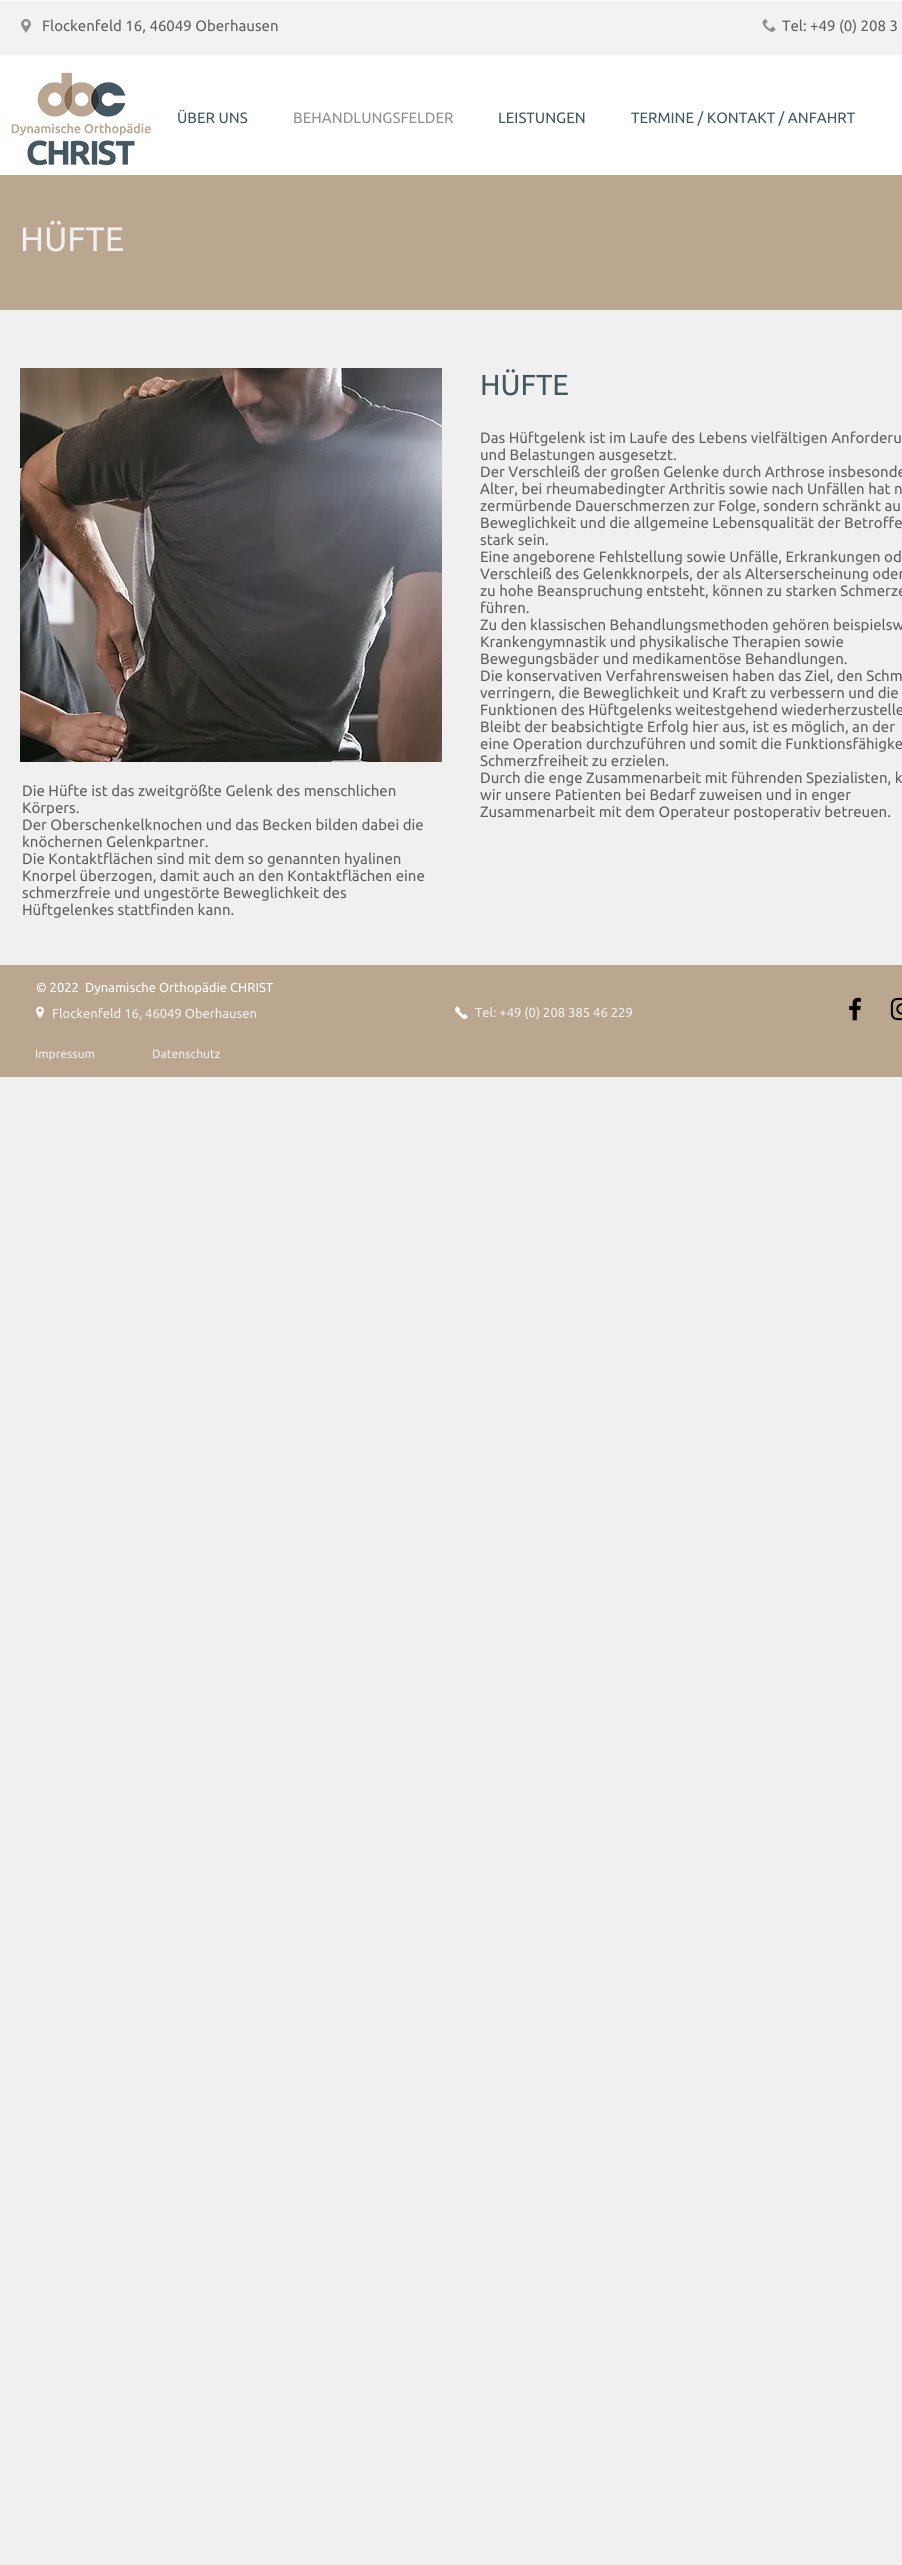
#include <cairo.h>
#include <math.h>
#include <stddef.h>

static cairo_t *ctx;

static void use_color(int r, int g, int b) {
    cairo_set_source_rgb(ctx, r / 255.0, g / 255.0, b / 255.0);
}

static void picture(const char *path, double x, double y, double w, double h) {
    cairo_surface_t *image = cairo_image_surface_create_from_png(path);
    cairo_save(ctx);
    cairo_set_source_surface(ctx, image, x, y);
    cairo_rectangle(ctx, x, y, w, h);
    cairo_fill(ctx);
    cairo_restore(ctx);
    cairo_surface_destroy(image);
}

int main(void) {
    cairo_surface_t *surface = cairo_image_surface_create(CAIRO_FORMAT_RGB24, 902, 2565);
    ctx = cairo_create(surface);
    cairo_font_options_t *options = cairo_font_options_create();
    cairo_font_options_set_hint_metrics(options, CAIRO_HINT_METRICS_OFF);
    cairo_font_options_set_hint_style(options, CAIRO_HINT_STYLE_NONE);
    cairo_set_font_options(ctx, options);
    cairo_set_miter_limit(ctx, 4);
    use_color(240, 240, 240);
    cairo_paint(ctx);
    use_color(255, 255, 255);
    cairo_rectangle(ctx, 0, 0, 902, 175);
    cairo_fill(ctx);
    use_color(242, 242, 242);
    cairo_rectangle(ctx, 0, 1, 902, 54);
    cairo_fill(ctx);
    picture("img1.png", 21, 19, 10, 14);
    cairo_select_font_face(ctx, "Ubuntu", CAIRO_FONT_SLANT_NORMAL, CAIRO_FONT_WEIGHT_NORMAL);
    cairo_set_font_size(ctx, 15);
    use_color(96, 96, 96);
    cairo_move_to(ctx, 42, 31);
    cairo_show_text(ctx, "Flockenfeld 16, 46049 Oberhausen");
    picture("img2.png", 762, 19, 14, 13);
    cairo_move_to(ctx, 782, 31);
    cairo_show_text(ctx, "Tel: +49 (0) 208 3");
    picture("img3.png", 11, 72, 140, 94);
    use_color(67, 87, 96);
    cairo_move_to(ctx, 177, 123);
    cairo_show_text(ctx, "ÜBER UNS");
    use_color(144, 144, 144);
    cairo_move_to(ctx, 293, 123);
    cairo_show_text(ctx, "BEHANDLUNGSFELDER");
    use_color(67, 87, 96);
    cairo_move_to(ctx, 498, 123);
    cairo_show_text(ctx, "LEISTUNGEN");
    cairo_move_to(ctx, 631, 123);
    cairo_show_text(ctx, "TERMINE / KONTAKT / ANFAHRT");
    use_color(187, 166, 144);
    cairo_rectangle(ctx, 0, 175, 902, 135);
    cairo_fill(ctx);
    cairo_set_font_size(ctx, 34);
    use_color(240, 240, 240);
    cairo_move_to(ctx, 20, 251);
    cairo_show_text(ctx, "HÜFTE");
    picture("img4.png", 20, 368, 422, 394);
    cairo_set_font_size(ctx, 29);
    use_color(67, 87, 96);
    cairo_move_to(ctx, 480, 395);
    cairo_show_text(ctx, "HÜFTE");
    cairo_set_font_size(ctx, 15);
    use_color(96, 96, 96);
    cairo_move_to(ctx, 480, 443);
    cairo_show_text(ctx, "Das Hüftgelenk ist im Laufe des Lebens vielfältigen Anforderu");
    cairo_move_to(ctx, 480, 460);
    cairo_show_text(ctx, "und Belastungen ausgesetzt.");
    cairo_move_to(ctx, 480, 477);
    cairo_show_text(ctx, "Der Verschleiß der großen Gelenke durch Arthrose insbesonde");
    cairo_move_to(ctx, 480, 494);
    cairo_show_text(ctx, "Alter, bei rheumabedingter Arthritis sowie nach Unfällen hat n");
    cairo_move_to(ctx, 480, 511);
    cairo_show_text(ctx, "zermürbende Dauerschmerzen zur Folge, sondern schränkt au");
    cairo_move_to(ctx, 480, 528);
    cairo_show_text(ctx, "Beweglichkeit und die allgemeine Lebensqualität der Betroffe");
    cairo_move_to(ctx, 480, 545);
    cairo_show_text(ctx, "stark sein.");
    cairo_move_to(ctx, 480, 562);
    cairo_show_text(ctx, "Eine angeborene Fehlstellung sowie Unfälle, Erkrankungen od");
    cairo_move_to(ctx, 480, 579);
    cairo_show_text(ctx, "Verschleiß des Gelenkknorpels, der als Alterserscheinung oder");
    cairo_move_to(ctx, 480, 596);
    cairo_show_text(ctx, "zu hohe Beanspruchung entsteht, können zu starken Schmerze");
    cairo_move_to(ctx, 480, 613);
    cairo_show_text(ctx, "führen.");
    cairo_move_to(ctx, 480, 630);
    cairo_show_text(ctx, "Zu den klassischen Behandlungsmethoden gehören beispielsw");
    cairo_move_to(ctx, 480, 647);
    cairo_show_text(ctx, "Krankengymnastik und physikalische Therapien sowie");
    cairo_move_to(ctx, 480, 664);
    cairo_show_text(ctx, "Bewegungsbäder und medikamentöse Behandlungen.");
    cairo_move_to(ctx, 480, 681);
    cairo_show_text(ctx, "Die konservativen Verfahrensweisen haben das Ziel, den Schm");
    cairo_move_to(ctx, 480, 698);
    cairo_show_text(ctx, "verringern, die Beweglichkeit und Kraft zu verbessern und die");
    cairo_move_to(ctx, 480, 715);
    cairo_show_text(ctx, "Funktionen des Hüftgelenks weitestgehend wiederherzustelle");
    cairo_move_to(ctx, 480, 732);
    cairo_show_text(ctx, "Bleibt der beabsichtigte Erfolg hier aus, ist es möglich, an der");
    cairo_move_to(ctx, 480, 749);
    cairo_show_text(ctx, "eine Operation durchzuführen und somit die Funktionsfähigke");
    cairo_move_to(ctx, 480, 766);
    cairo_show_text(ctx, "Schmerzfreiheit zu erzielen.");
    cairo_move_to(ctx, 480, 783);
    cairo_show_text(ctx, "Durch die enge Zusammenarbeit mit führenden Spezialisten, k");
    cairo_move_to(ctx, 480, 800);
    cairo_show_text(ctx, "wir unsere Patienten bei Bedarf zuweisen und in enger");
    cairo_move_to(ctx, 480, 817);
    cairo_show_text(ctx, "Zusammenarbeit mit dem Operateur postoperativ betreuen.");
    cairo_move_to(ctx, 22, 796);
    cairo_show_text(ctx, "Die Hüfte ist das zweitgrößte Gelenk des menschlichen");
    cairo_move_to(ctx, 22, 813);
    cairo_show_text(ctx, "Körpers.");
    cairo_move_to(ctx, 22, 830);
    cairo_show_text(ctx, "Der Oberschenkelknochen und das Becken bilden dabei die");
    cairo_move_to(ctx, 22, 847);
    cairo_show_text(ctx, "knöchernen Gelenkpartner.");
    cairo_move_to(ctx, 22, 864);
    cairo_show_text(ctx, "Die Kontaktflächen sind mit dem so genannten hyalinen");
    cairo_move_to(ctx, 22, 881);
    cairo_show_text(ctx, "Knorpel überzogen, damit auch an den Kontaktflächen eine");
    cairo_move_to(ctx, 22, 898);
    cairo_show_text(ctx, "schmerzfreie und ungestörte Beweglichkeit des");
    cairo_move_to(ctx, 22, 915);
    cairo_show_text(ctx, "Hüftgelenkes stattfinden kann.");
    use_color(187, 166, 144);
    cairo_rectangle(ctx, 0, 965, 902, 112);
    cairo_fill(ctx);
    cairo_set_font_size(ctx, 13);
    use_color(255, 255, 255);
    cairo_move_to(ctx, 36, 992);
    cairo_show_text(ctx, "© 2022  Dynamische Orthopädie CHRIST");
    picture("img5.png", 36, 1006, 8, 13);
    use_color(240, 240, 240);
    cairo_move_to(ctx, 52, 1018);
    cairo_show_text(ctx, "Flockenfeld 16, 46049 Oberhausen");
    picture("img6.png", 455, 1006, 13, 13);
    cairo_move_to(ctx, 475, 1017);
    cairo_show_text(ctx, "Tel: +49 (0) 208 385 46 229");
    picture("img7.png", 849, 997, 13, 24);
    picture("img8.png", 890, 997, 12, 24);
    cairo_set_font_size(ctx, 12);
    cairo_move_to(ctx, 35, 1058);
    cairo_show_text(ctx, "Impressum");
    cairo_move_to(ctx, 152, 1058);
    cairo_show_text(ctx, "Datenschutz");
    cairo_surface_write_to_png(surface, "result.png");
    cairo_font_options_destroy(options);
    cairo_destroy(ctx);
    cairo_surface_destroy(surface);
    return 0;
}
